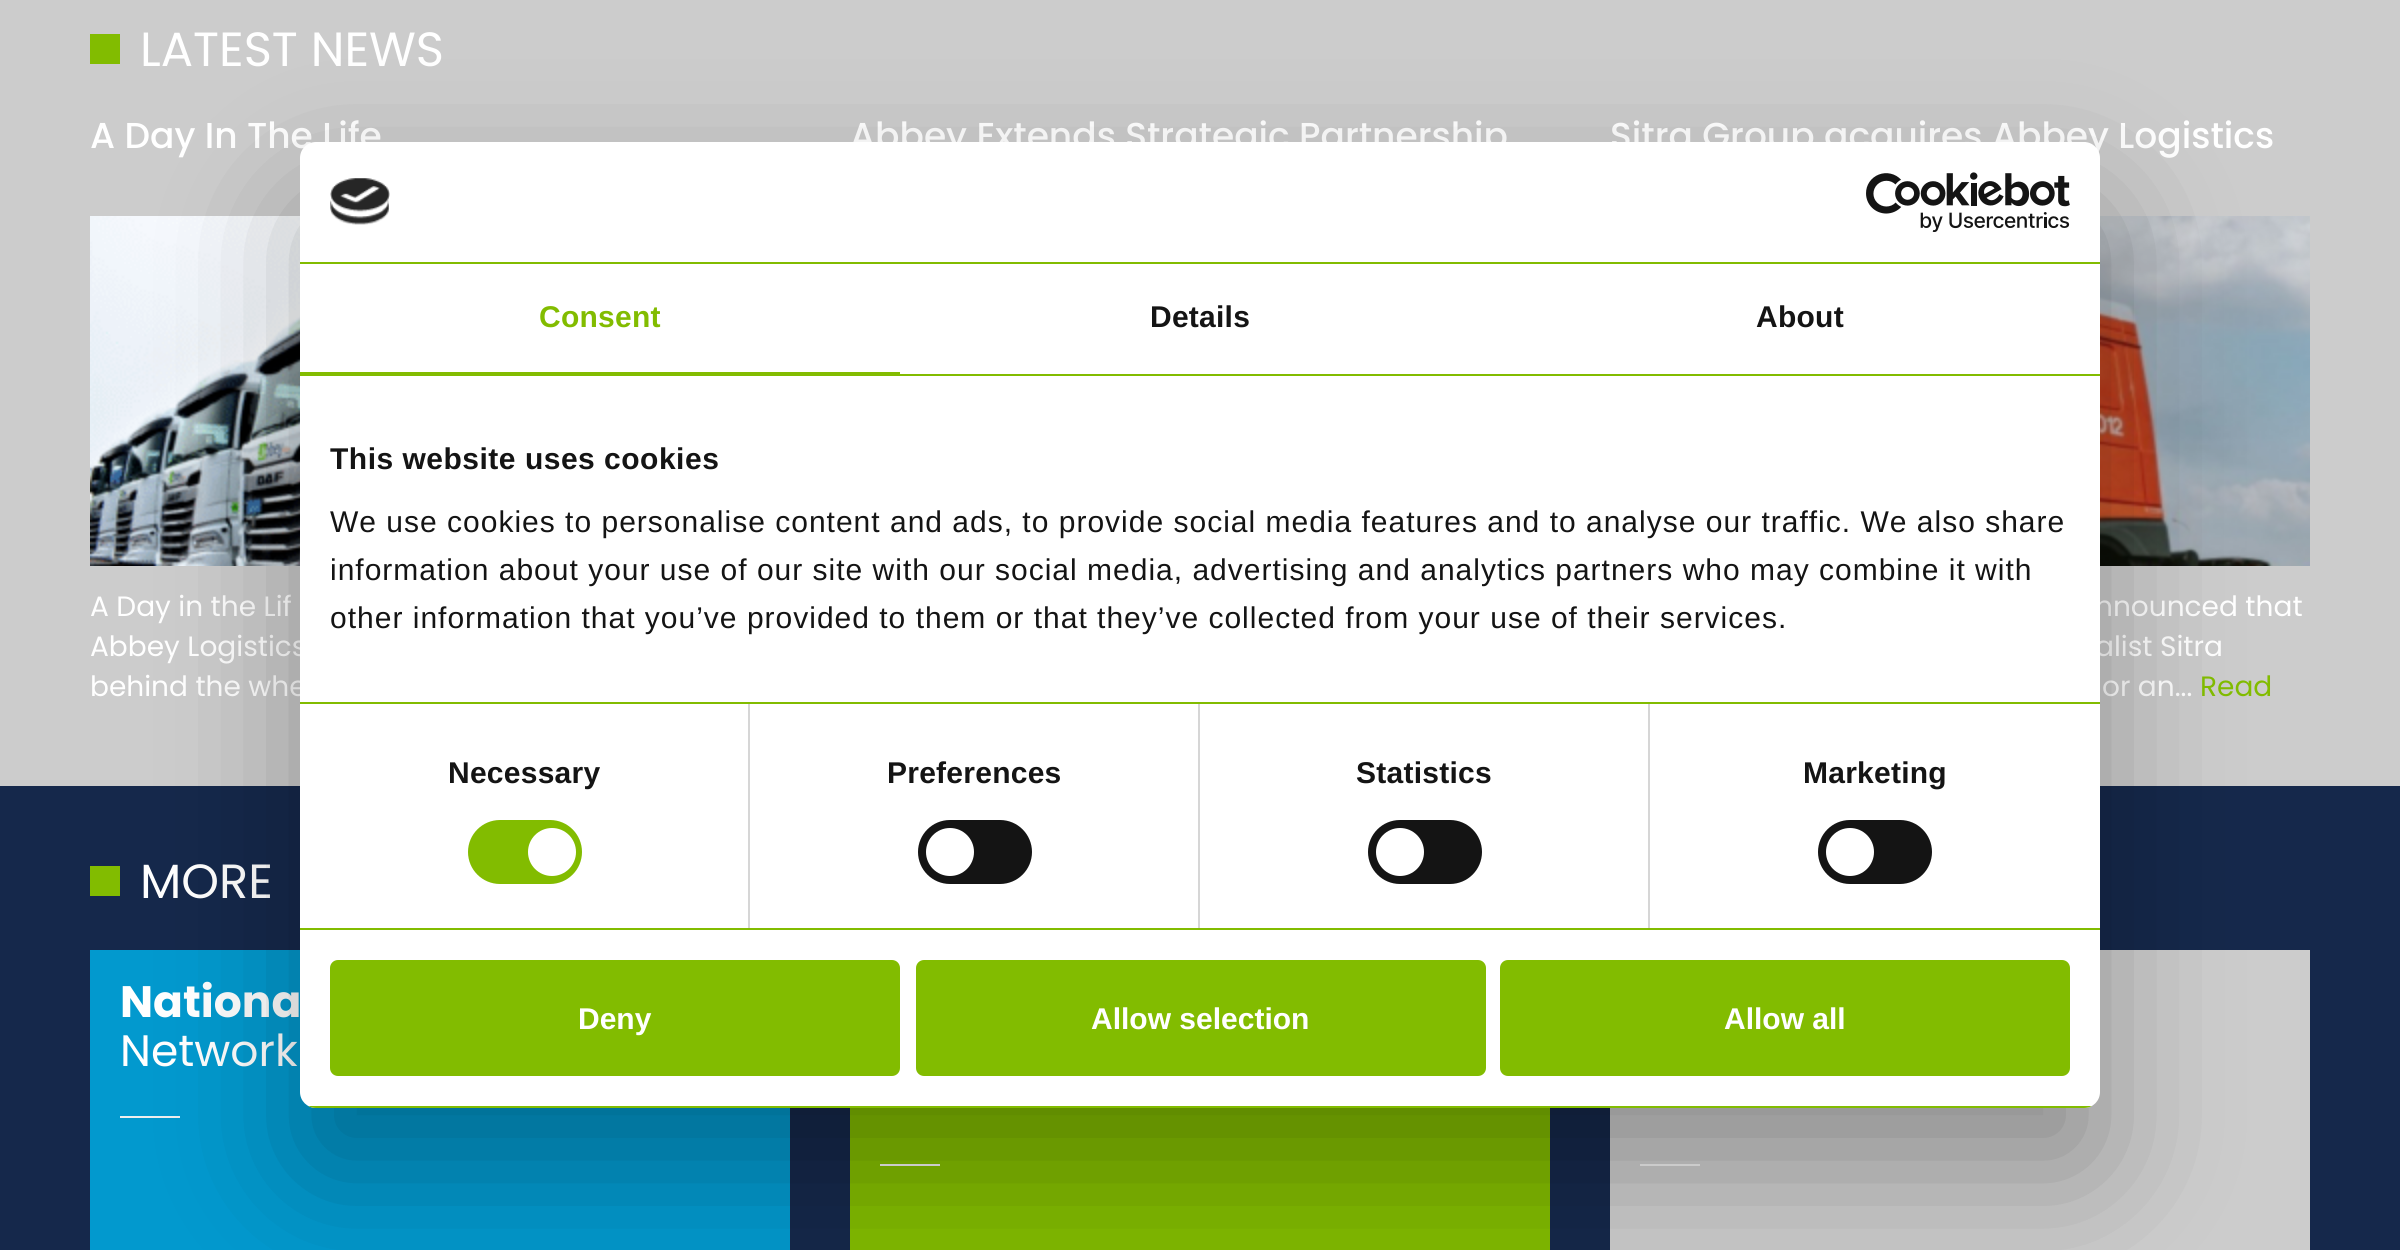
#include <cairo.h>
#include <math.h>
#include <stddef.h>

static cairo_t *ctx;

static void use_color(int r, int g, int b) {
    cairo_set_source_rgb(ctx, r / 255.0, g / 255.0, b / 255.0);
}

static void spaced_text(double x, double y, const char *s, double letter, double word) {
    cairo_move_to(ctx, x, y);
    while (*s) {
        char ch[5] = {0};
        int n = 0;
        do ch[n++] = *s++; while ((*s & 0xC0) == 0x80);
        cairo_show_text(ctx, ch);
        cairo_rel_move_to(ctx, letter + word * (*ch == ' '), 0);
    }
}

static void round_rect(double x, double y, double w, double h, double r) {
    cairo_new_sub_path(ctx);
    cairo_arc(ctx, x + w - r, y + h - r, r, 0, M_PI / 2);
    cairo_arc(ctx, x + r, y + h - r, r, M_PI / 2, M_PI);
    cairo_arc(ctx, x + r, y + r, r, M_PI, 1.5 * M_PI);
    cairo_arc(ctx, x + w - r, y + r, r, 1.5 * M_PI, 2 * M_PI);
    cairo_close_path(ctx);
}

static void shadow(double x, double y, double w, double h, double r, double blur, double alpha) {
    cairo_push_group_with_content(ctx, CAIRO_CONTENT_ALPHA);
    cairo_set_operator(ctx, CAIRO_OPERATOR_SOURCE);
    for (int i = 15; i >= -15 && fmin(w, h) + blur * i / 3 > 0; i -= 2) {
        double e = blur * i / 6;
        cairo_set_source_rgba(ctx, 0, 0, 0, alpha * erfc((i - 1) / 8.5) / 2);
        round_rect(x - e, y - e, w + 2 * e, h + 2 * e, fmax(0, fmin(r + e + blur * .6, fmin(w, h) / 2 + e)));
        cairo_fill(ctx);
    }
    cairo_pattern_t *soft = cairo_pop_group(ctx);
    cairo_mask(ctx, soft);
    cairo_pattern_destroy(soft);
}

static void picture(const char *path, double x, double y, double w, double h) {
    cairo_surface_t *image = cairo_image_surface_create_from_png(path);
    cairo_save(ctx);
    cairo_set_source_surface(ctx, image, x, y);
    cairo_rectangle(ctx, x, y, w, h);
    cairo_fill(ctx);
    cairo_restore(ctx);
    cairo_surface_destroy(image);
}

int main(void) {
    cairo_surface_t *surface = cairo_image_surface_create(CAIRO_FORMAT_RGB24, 2400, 1250);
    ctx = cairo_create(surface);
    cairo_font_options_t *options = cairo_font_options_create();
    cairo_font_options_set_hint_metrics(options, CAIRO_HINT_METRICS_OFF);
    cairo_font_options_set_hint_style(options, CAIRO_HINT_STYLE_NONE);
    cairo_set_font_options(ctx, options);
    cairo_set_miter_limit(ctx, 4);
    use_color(204, 204, 204);
    cairo_paint(ctx);
    use_color(130, 188, 0);
    cairo_rectangle(ctx, 90, 34, 30, 30);
    cairo_fill(ctx);
    cairo_select_font_face(ctx, "Poppins", CAIRO_FONT_SLANT_NORMAL, CAIRO_FONT_WEIGHT_NORMAL);
    cairo_set_font_size(ctx, 48);
    use_color(255, 255, 255);
    cairo_move_to(ctx, 140, 66);
    cairo_show_text(ctx, "LATEST NEWS");
    cairo_select_font_face(ctx, "Poppins Medium", CAIRO_FONT_SLANT_NORMAL, CAIRO_FONT_WEIGHT_NORMAL);
    cairo_set_font_size(ctx, 36);
    cairo_move_to(ctx, 90, 148);
    cairo_show_text(ctx, "A Day In The Life");
    picture("img1.png", 90, 216, 210, 350);
    cairo_select_font_face(ctx, "Poppins", CAIRO_FONT_SLANT_NORMAL, CAIRO_FONT_WEIGHT_NORMAL);
    cairo_set_font_size(ctx, 28);
    cairo_move_to(ctx, 90, 616);
    cairo_show_text(ctx, "A Day in the Lif");
    cairo_move_to(ctx, 90, 656);
    cairo_show_text(ctx, "Abbey Logistics");
    cairo_move_to(ctx, 90, 696);
    cairo_show_text(ctx, "behind the whe");
    cairo_select_font_face(ctx, "Poppins Medium", CAIRO_FONT_SLANT_NORMAL, CAIRO_FONT_WEIGHT_NORMAL);
    cairo_set_font_size(ctx, 36);
    cairo_move_to(ctx, 850, 148);
    cairo_show_text(ctx, "Abbey Extends Strategic Partnership");
    cairo_move_to(ctx, 1610, 148);
    cairo_show_text(ctx, "Sitra Group acquires Abbey Logistics");
    picture("img2.png", 2100, 216, 210, 350);
    cairo_select_font_face(ctx, "Poppins", CAIRO_FONT_SLANT_NORMAL, CAIRO_FONT_WEIGHT_NORMAL);
    cairo_set_font_size(ctx, 28);
    cairo_move_to(ctx, 2095, 616);
    cairo_show_text(ctx, "nnounced that");
    cairo_move_to(ctx, 2095, 656);
    cairo_show_text(ctx, "alist Sitra");
    cairo_move_to(ctx, 2102, 696);
    cairo_show_text(ctx, "or an...");
    use_color(130, 188, 0);
    cairo_move_to(ctx, 2200, 696);
    cairo_show_text(ctx, "Read");
    use_color(21, 40, 75);
    cairo_rectangle(ctx, 0, 786, 2400, 464);
    cairo_fill(ctx);
    use_color(130, 188, 0);
    cairo_rectangle(ctx, 90, 866, 30, 30);
    cairo_fill(ctx);
    cairo_set_font_size(ctx, 48);
    use_color(255, 255, 255);
    cairo_move_to(ctx, 140, 898);
    cairo_show_text(ctx, "MORE");
    use_color(2, 153, 206);
    cairo_rectangle(ctx, 90, 950, 700, 300);
    cairo_fill(ctx);
    cairo_select_font_face(ctx, "Poppins", CAIRO_FONT_SLANT_NORMAL, CAIRO_FONT_WEIGHT_BOLD);
    cairo_set_font_size(ctx, 44);
    use_color(255, 255, 255);
    cairo_move_to(ctx, 120, 1017);
    cairo_show_text(ctx, "Nationa");
    cairo_select_font_face(ctx, "Poppins", CAIRO_FONT_SLANT_NORMAL, CAIRO_FONT_WEIGHT_NORMAL);
    cairo_move_to(ctx, 120, 1066);
    cairo_show_text(ctx, "Network");
    use_color(238, 238, 238);
    cairo_rectangle(ctx, 120, 1116, 60, 2);
    cairo_fill(ctx);
    use_color(204, 204, 204);
    cairo_rectangle(ctx, 1610, 950, 700, 300);
    cairo_fill(ctx);
    use_color(238, 238, 238);
    cairo_rectangle(ctx, 1640, 1164, 60, 2);
    cairo_fill(ctx);
    use_color(130, 188, 0);
    cairo_rectangle(ctx, 850, 1108, 700, 142);
    cairo_fill(ctx);
    use_color(238, 238, 238);
    cairo_rectangle(ctx, 880, 1164, 60, 2);
    cairo_fill(ctx);
    use_color(0, 0, 0);
    shadow(300, 206, 1800, 966, 16, 68, 0.3);
    use_color(255, 255, 255);
    round_rect(300, 142, 1800, 966, 16);
    cairo_fill(ctx);
    use_color(130, 188, 0);
    cairo_rectangle(ctx, 300, 262, 1800, 2);
    cairo_fill(ctx);
    picture("img3.png", 330, 178, 60, 47);
    picture("img4.png", 1866, 172, 204, 60);
    cairo_rectangle(ctx, 300, 374, 1800, 2);
    cairo_fill(ctx);
    cairo_rectangle(ctx, 300, 372, 600, 2);
    cairo_fill(ctx);
    cairo_select_font_face(ctx, "Liberation Sans", CAIRO_FONT_SLANT_NORMAL, CAIRO_FONT_WEIGHT_BOLD);
    cairo_set_font_size(ctx, 30);
    spaced_text(539, 327, "Consent", 0.25, 0);
    use_color(20, 20, 20);
    spaced_text(1150, 327, "Details", 0.25, 0);
    spaced_text(1756, 327, "About", 0.25, 0);
    use_color(130, 188, 0);
    cairo_rectangle(ctx, 300, 702, 1800, 2);
    cairo_fill(ctx);
    use_color(20, 20, 20);
    spaced_text(330, 469, "This website uses cookies", 0.5, 0);
    cairo_select_font_face(ctx, "Liberation Sans", CAIRO_FONT_SLANT_NORMAL, CAIRO_FONT_WEIGHT_NORMAL);
    spaced_text(330, 532, "We use cookies to personalise content and ads, to provide social media features and to analyse our traffic. We also share", 1, 0);
    spaced_text(330, 580, "information about your use of our site with our social media, advertising and analytics partners who may combine it with", 1, 0);
    spaced_text(330, 628, "other information that you’ve provided to them or that they’ve collected from your use of their services.", 1, 0);
    use_color(130, 188, 0);
    cairo_rectangle(ctx, 300, 928, 1800, 2);
    cairo_fill(ctx);
    use_color(214, 214, 214);
    cairo_rectangle(ctx, 748, 704, 2, 224);
    cairo_fill(ctx);
    cairo_select_font_face(ctx, "Liberation Sans", CAIRO_FONT_SLANT_NORMAL, CAIRO_FONT_WEIGHT_BOLD);
    use_color(20, 20, 20);
    spaced_text(448, 783, "Necessary", 0.25, 0);
    use_color(130, 188, 0);
    round_rect(468, 820, 114, 64, 32);
    cairo_fill(ctx);
    use_color(255, 255, 255);
    cairo_arc(ctx, 552, 852, 24, 0, 2 * M_PI);
    cairo_fill(ctx);
    use_color(214, 214, 214);
    cairo_rectangle(ctx, 1198, 704, 2, 224);
    cairo_fill(ctx);
    use_color(20, 20, 20);
    spaced_text(887, 783, "Preferences", 0.25, 0);
    round_rect(918, 820, 114, 64, 32);
    cairo_fill(ctx);
    use_color(255, 255, 255);
    cairo_arc(ctx, 950, 852, 24, 0, 2 * M_PI);
    cairo_fill(ctx);
    use_color(214, 214, 214);
    cairo_rectangle(ctx, 1648, 704, 2, 224);
    cairo_fill(ctx);
    use_color(20, 20, 20);
    spaced_text(1356, 783, "Statistics", 0.25, 0);
    round_rect(1368, 820, 114, 64, 32);
    cairo_fill(ctx);
    use_color(255, 255, 255);
    cairo_arc(ctx, 1400, 852, 24, 0, 2 * M_PI);
    cairo_fill(ctx);
    use_color(20, 20, 20);
    spaced_text(1803, 783, "Marketing", 0.25, 0);
    round_rect(1818, 820, 114, 64, 32);
    cairo_fill(ctx);
    use_color(255, 255, 255);
    cairo_arc(ctx, 1850, 852, 24, 0, 2 * M_PI);
    cairo_fill(ctx);
    cairo_save(ctx);
    round_rect(300, 142, 1800, 966, 16);
    cairo_clip(ctx);
    use_color(130, 188, 0);
    cairo_rectangle(ctx, 300, 1106, 1800, 2);
    cairo_fill(ctx);
    cairo_restore(ctx);
    use_color(130, 188, 0);
    round_rect(332, 962, 566, 112, 6);
    cairo_fill_preserve(ctx);
    cairo_set_line_width(ctx, 4);
    cairo_stroke(ctx);
    use_color(255, 255, 255);
    cairo_move_to(ctx, 578, 1029);
    cairo_show_text(ctx, "Deny");
    use_color(130, 188, 0);
    round_rect(918, 962, 566, 112, 6);
    cairo_fill_preserve(ctx);
    cairo_stroke(ctx);
    use_color(255, 255, 255);
    cairo_move_to(ctx, 1091, 1029);
    cairo_show_text(ctx, "Allow selection");
    use_color(130, 188, 0);
    round_rect(1502, 962, 566, 112, 6);
    cairo_fill_preserve(ctx);
    cairo_stroke(ctx);
    use_color(255, 255, 255);
    cairo_move_to(ctx, 1724, 1029);
    cairo_show_text(ctx, "Allow all");
    cairo_surface_write_to_png(surface, "result.png");
    cairo_font_options_destroy(options);
    cairo_destroy(ctx);
    cairo_surface_destroy(surface);
    return 0;
}
